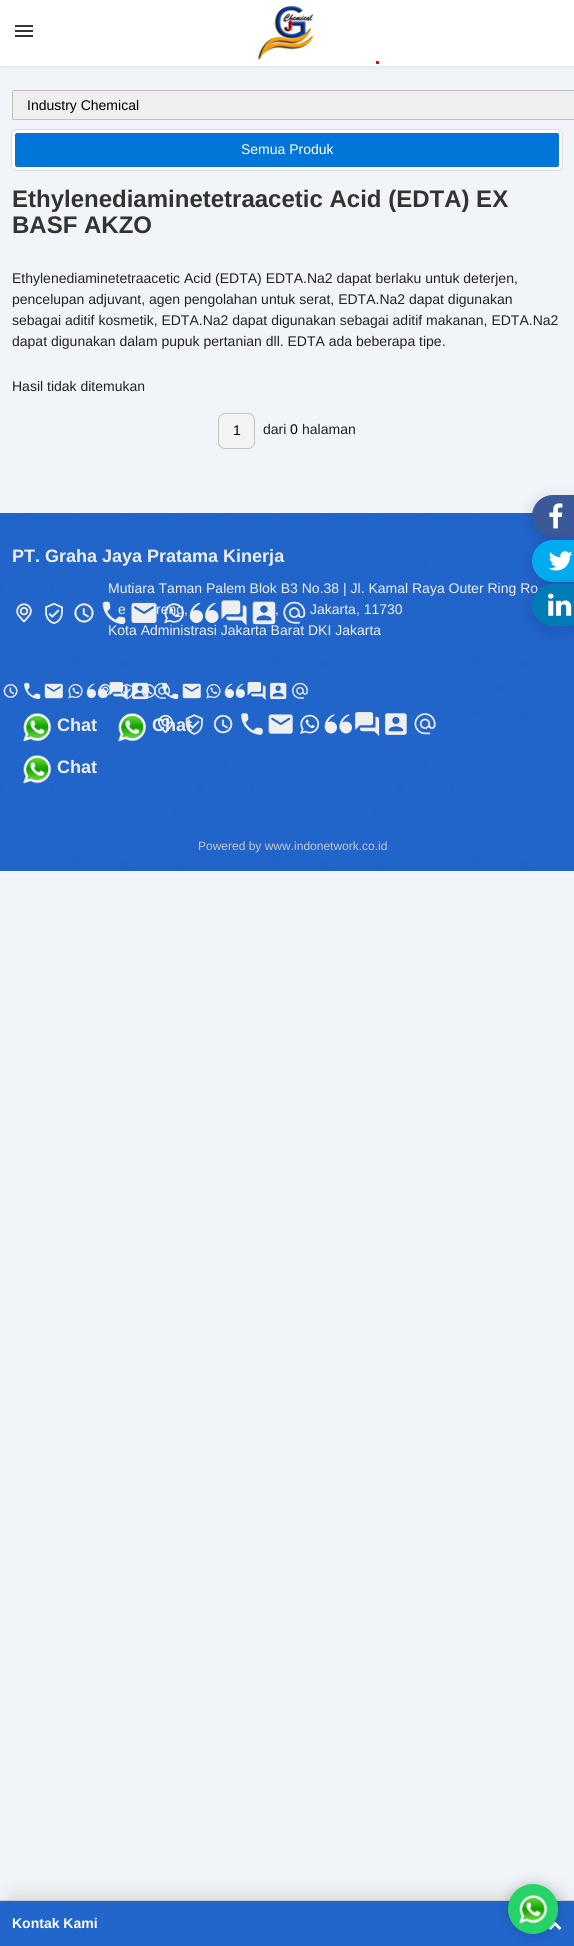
#include <cairo.h>
#include <math.h>
#include <stddef.h>

static cairo_t *ctx;

static void use_color(int r, int g, int b) {
    cairo_set_source_rgb(ctx, r / 255.0, g / 255.0, b / 255.0);
}

static void round_rect(double x, double y, double w, double h, double r) {
    cairo_new_sub_path(ctx);
    cairo_arc(ctx, x + w - r, y + h - r, r, 0, M_PI / 2);
    cairo_arc(ctx, x + r, y + h - r, r, M_PI / 2, M_PI);
    cairo_arc(ctx, x + r, y + r, r, M_PI, 1.5 * M_PI);
    cairo_arc(ctx, x + w - r, y + r, r, 1.5 * M_PI, 2 * M_PI);
    cairo_close_path(ctx);
}

static void shadow(double x, double y, double w, double h, double r, double blur, double alpha) {
    cairo_push_group_with_content(ctx, CAIRO_CONTENT_ALPHA);
    cairo_set_operator(ctx, CAIRO_OPERATOR_SOURCE);
    for (int i = 15; i >= -15 && fmin(w, h) + blur * i / 3 > 0; i -= 2) {
        double e = blur * i / 6;
        cairo_set_source_rgba(ctx, 0, 0, 0, alpha * erfc((i - 1) / 8.5) / 2);
        round_rect(x - e, y - e, w + 2 * e, h + 2 * e, fmax(0, fmin(r + e + blur * .6, fmin(w, h) / 2 + e)));
        cairo_fill(ctx);
    }
    cairo_pattern_t *soft = cairo_pop_group(ctx);
    cairo_mask(ctx, soft);
    cairo_pattern_destroy(soft);
}

static void picture(const char *path, double x, double y, double w, double h) {
    cairo_surface_t *image = cairo_image_surface_create_from_png(path);
    cairo_save(ctx);
    cairo_set_source_surface(ctx, image, x, y);
    cairo_rectangle(ctx, x, y, w, h);
    cairo_fill(ctx);
    cairo_restore(ctx);
    cairo_surface_destroy(image);
}

int main(void) {
    cairo_surface_t *surface = cairo_image_surface_create(CAIRO_FORMAT_RGB24, 574, 1946);
    ctx = cairo_create(surface);
    cairo_font_options_t *options = cairo_font_options_create();
    cairo_font_options_set_hint_metrics(options, CAIRO_HINT_METRICS_OFF);
    cairo_font_options_set_hint_style(options, CAIRO_HINT_STYLE_NONE);
    cairo_set_font_options(ctx, options);
    cairo_set_miter_limit(ctx, 4);
    use_color(241, 244, 249);
    cairo_paint(ctx);
    use_color(220, 220, 220);
    shadow(0, 2, 574, 66, 0, 2, 0.5);
    use_color(255, 255, 255);
    cairo_rectangle(ctx, 0, 0, 574, 66);
    cairo_fill(ctx);
    use_color(51, 51, 51);
    cairo_rectangle(ctx, 15, 30, 18, 2);
    cairo_fill(ctx);
    cairo_rectangle(ctx, 15, 25, 18, 2);
    cairo_fill(ctx);
    cairo_rectangle(ctx, 15, 35, 18, 2);
    cairo_fill(ctx);
    picture("img1.png", 257, 6, 122, 58);
    use_color(239, 239, 239);
    round_rect(12.5, 90.5, 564, 29, 1.5);
    cairo_fill_preserve(ctx);
    use_color(191, 191, 191);
    cairo_set_line_width(ctx, 1);
    cairo_stroke(ctx);
    cairo_select_font_face(ctx, "Liberation Sans", CAIRO_FONT_SLANT_NORMAL, CAIRO_FONT_WEIGHT_NORMAL);
    cairo_set_font_size(ctx, 14);
    use_color(0, 0, 0);
    cairo_move_to(ctx, 27, 110);
    cairo_show_text(ctx, "Industry Chemical");
    round_rect(11.5, 129.5, 551, 41, 5.5);
    use_color(217, 220, 224);
    cairo_stroke(ctx);
    use_color(2, 117, 216);
    round_rect(13.5, 131.5, 547, 37, 3.5);
    cairo_fill_preserve(ctx);
    use_color(255, 255, 255);
    cairo_set_line_width(ctx, 3);
    cairo_stroke(ctx);
    cairo_move_to(ctx, 241, 154);
    cairo_show_text(ctx, "Semua Produk");
    cairo_select_font_face(ctx, "Liberation Sans", CAIRO_FONT_SLANT_NORMAL, CAIRO_FONT_WEIGHT_BOLD);
    cairo_set_font_size(ctx, 24);
    use_color(51, 51, 51);
    cairo_move_to(ctx, 12, 207);
    cairo_show_text(ctx, "Ethylenediaminetetraacetic Acid (EDTA) EX");
    cairo_move_to(ctx, 12, 233);
    cairo_show_text(ctx, "BASF AKZO");
    cairo_select_font_face(ctx, "Liberation Sans", CAIRO_FONT_SLANT_NORMAL, CAIRO_FONT_WEIGHT_NORMAL);
    cairo_set_font_size(ctx, 14);
    use_color(34, 34, 34);
    cairo_move_to(ctx, 12, 283);
    cairo_show_text(ctx, "Ethylenediaminetetraacetic Acid (EDTA) EDTA.Na2 dapat berlaku untuk deterjen,");
    cairo_move_to(ctx, 12, 304);
    cairo_show_text(ctx, "pencelupan adjuvant, agen pengolahan untuk serat, EDTA.Na2 dapat digunakan");
    cairo_move_to(ctx, 12, 325);
    cairo_show_text(ctx, "sebagai aditif kosmetik, EDTA.Na2 dapat digunakan sebagai aditif makanan, EDTA.Na2");
    cairo_move_to(ctx, 12, 346);
    cairo_show_text(ctx, "dapat digunakan dalam pupuk pertanian dll. EDTA ada beberapa tipe.");
    cairo_move_to(ctx, 12, 391);
    cairo_show_text(ctx, "Hasil tidak ditemukan");
    use_color(244, 244, 244);
    round_rect(218.5, 413.5, 36, 35, 6.5);
    cairo_fill_preserve(ctx);
    use_color(195, 195, 195);
    cairo_set_line_width(ctx, 1);
    cairo_stroke(ctx);
    use_color(0, 0, 0);
    cairo_move_to(ctx, 233, 435);
    cairo_show_text(ctx, "1");
    use_color(34, 34, 34);
    cairo_move_to(ctx, 263, 434);
    cairo_show_text(ctx, "dari");
    use_color(0, 0, 0);
    cairo_move_to(ctx, 290, 434);
    cairo_show_text(ctx, "0");
    use_color(34, 34, 34);
    cairo_move_to(ctx, 302, 434);
    cairo_show_text(ctx, "halaman");
    use_color(204, 204, 204);
    shadow(12, 1900, 550, 22, 0, 12, 1);
    use_color(34, 102, 204);
    cairo_rectangle(ctx, 0, 1901, 574, 45);
    cairo_fill(ctx);
    use_color(204, 204, 204);
    cairo_rectangle(ctx, 0, 1900, 574, 1);
    cairo_fill(ctx);
    cairo_select_font_face(ctx, "Liberation Sans", CAIRO_FONT_SLANT_NORMAL, CAIRO_FONT_WEIGHT_BOLD);
    use_color(255, 255, 255);
    cairo_move_to(ctx, 12, 1928);
    cairo_show_text(ctx, "Kontak Kami");
    picture("img2.png", 548, 1921, 14, 9);
    use_color(34, 102, 204);
    cairo_rectangle(ctx, 0, 513, 574, 358);
    cairo_fill(ctx);
    picture("img3.png", 0, 513, 574, 358);
    cairo_set_font_size(ctx, 18);
    use_color(239, 239, 239);
    cairo_move_to(ctx, 12, 562);
    cairo_show_text(ctx, "PT. Graha Jaya Pratama Kinerja");
    cairo_select_font_face(ctx, "Liberation Sans", CAIRO_FONT_SLANT_NORMAL, CAIRO_FONT_WEIGHT_NORMAL);
    cairo_set_font_size(ctx, 14);
    cairo_move_to(ctx, 108, 593);
    cairo_show_text(ctx, "Mutiara Taman Palem Blok B3 No.38 | Jl. Kamal Raya Outer Ring Ro");
    picture("img4.png", 16, 600, 290, 26);
    cairo_move_to(ctx, 118, 614);
    cairo_show_text(ctx, "e");
    cairo_move_to(ctx, 156, 614);
    cairo_show_text(ctx, "reng,");
    cairo_move_to(ctx, 275, 614);
    cairo_show_text(ctx, ",");
    cairo_move_to(ctx, 310, 614);
    cairo_show_text(ctx, "Jakarta, 11730");
    cairo_move_to(ctx, 108, 635);
    cairo_show_text(ctx, "Kota Administrasi Jakarta Barat DKI Jakarta");
    picture("img5.png", 3, 682, 167, 18);
    picture("img6.png", 100, 682, 208, 18);
    picture("img7.png", 23, 713, 29, 29);
    cairo_select_font_face(ctx, "Liberation Sans", CAIRO_FONT_SLANT_NORMAL, CAIRO_FONT_WEIGHT_BOLD);
    cairo_set_font_size(ctx, 18);
    cairo_move_to(ctx, 57, 731);
    cairo_show_text(ctx, "Chat");
    picture("img8.png", 118, 713, 29, 29);
    cairo_move_to(ctx, 152, 731);
    cairo_show_text(ctx, "Chat");
    picture("img9.png", 23, 755, 29, 29);
    cairo_move_to(ctx, 57, 773);
    cairo_show_text(ctx, "Chat");
    picture("img10.png", 158, 712, 278, 24);
    cairo_select_font_face(ctx, "Liberation Sans", CAIRO_FONT_SLANT_NORMAL, CAIRO_FONT_WEIGHT_NORMAL);
    cairo_set_font_size(ctx, 12);
    use_color(199, 199, 199);
    cairo_move_to(ctx, 198, 850);
    cairo_show_text(ctx, "Powered by www.indonetwork.co.id");
    use_color(0, 0, 75);
    shadow(532, 499, 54, 42, 21, 8, 0.16);
    use_color(59, 89, 152);
    cairo_new_path(ctx);
    cairo_move_to(ctx, 553, 495);
    cairo_line_to(ctx, 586, 495);
    cairo_line_to(ctx, 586, 537);
    cairo_line_to(ctx, 553, 537);
    cairo_curve_to(ctx, 541.5, 537, 532, 527.5, 532, 516);
    cairo_curve_to(ctx, 532, 504.5, 541.5, 495, 553, 495);
    cairo_close_path(ctx);
    cairo_fill(ctx);
    picture("img11.png", 549, 503, 14, 26);
    use_color(0, 0, 75);
    shadow(532, 544, 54, 42, 21, 8, 0.16);
    use_color(0, 172, 237);
    cairo_new_path(ctx);
    cairo_move_to(ctx, 553, 540);
    cairo_line_to(ctx, 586, 540);
    cairo_line_to(ctx, 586, 582);
    cairo_line_to(ctx, 553, 582);
    cairo_curve_to(ctx, 541.5, 582, 532, 572.5, 532, 561);
    cairo_curve_to(ctx, 532, 549.5, 541.5, 540, 553, 540);
    cairo_close_path(ctx);
    cairo_fill(ctx);
    picture("img12.png", 548, 551, 25, 20);
    use_color(0, 0, 75);
    shadow(532, 588, 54, 42, 21, 8, 0.16);
    use_color(0, 123, 182);
    cairo_new_path(ctx);
    cairo_move_to(ctx, 553, 584);
    cairo_line_to(ctx, 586, 584);
    cairo_line_to(ctx, 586, 626);
    cairo_line_to(ctx, 553, 626);
    cairo_curve_to(ctx, 541.5, 626, 532, 616.5, 532, 605);
    cairo_curve_to(ctx, 532, 593.5, 541.5, 584, 553, 584);
    cairo_close_path(ctx);
    cairo_fill(ctx);
    picture("img13.png", 548, 593, 24, 23);
    use_color(0, 0, 0);
    shadow(508, 1884, 50, 50, 25, 6, 0.2);
    use_color(37, 211, 102);
    cairo_arc(ctx, 533, 1909, 25, 0, 2 * M_PI);
    cairo_fill(ctx);
    picture("img14.png", 519, 1895, 29, 29);
    cairo_surface_write_to_png(surface, "result.png");
    cairo_font_options_destroy(options);
    cairo_destroy(ctx);
    cairo_surface_destroy(surface);
    return 0;
}
